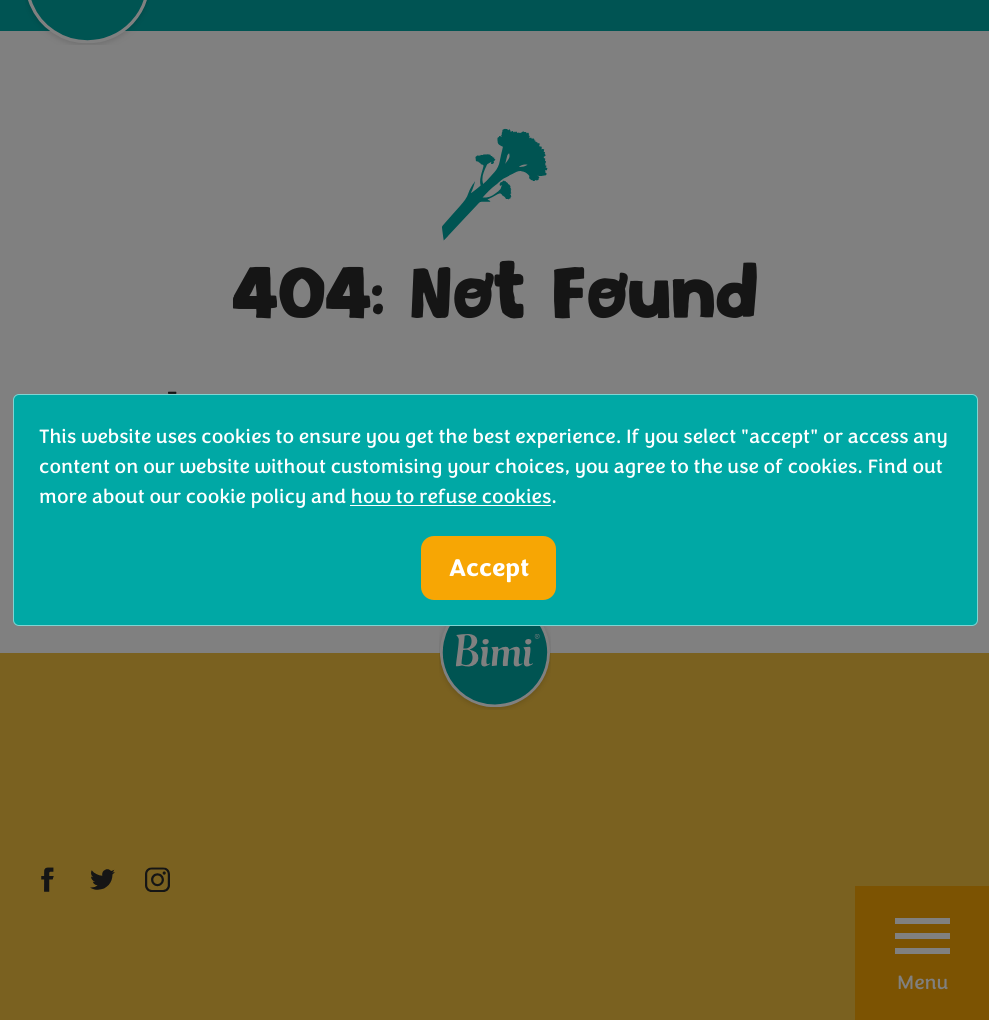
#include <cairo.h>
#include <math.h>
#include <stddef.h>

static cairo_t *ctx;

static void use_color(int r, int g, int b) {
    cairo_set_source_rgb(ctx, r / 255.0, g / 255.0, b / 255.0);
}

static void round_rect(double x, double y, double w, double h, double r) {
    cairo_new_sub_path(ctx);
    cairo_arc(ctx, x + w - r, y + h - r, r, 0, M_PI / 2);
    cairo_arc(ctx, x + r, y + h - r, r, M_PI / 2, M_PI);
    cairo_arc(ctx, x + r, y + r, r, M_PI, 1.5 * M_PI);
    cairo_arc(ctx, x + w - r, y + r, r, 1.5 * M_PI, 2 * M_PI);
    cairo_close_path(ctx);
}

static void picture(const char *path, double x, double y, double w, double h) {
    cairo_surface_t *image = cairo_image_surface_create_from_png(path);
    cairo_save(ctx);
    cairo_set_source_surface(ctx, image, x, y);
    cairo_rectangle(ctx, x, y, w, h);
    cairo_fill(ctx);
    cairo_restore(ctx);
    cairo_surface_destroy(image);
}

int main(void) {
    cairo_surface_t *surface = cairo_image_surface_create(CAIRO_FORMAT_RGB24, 989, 1020);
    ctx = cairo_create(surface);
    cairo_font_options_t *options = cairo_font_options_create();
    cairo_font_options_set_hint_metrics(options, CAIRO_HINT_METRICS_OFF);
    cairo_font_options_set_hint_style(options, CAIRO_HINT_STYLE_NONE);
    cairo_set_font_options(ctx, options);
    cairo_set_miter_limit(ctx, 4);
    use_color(128, 128, 128);
    cairo_paint(ctx);
    use_color(0, 84, 83);
    cairo_rectangle(ctx, 0, 0, 989, 31);
    cairo_fill(ctx);
    picture("img1.png", 25, 0, 125, 45);
    picture("img2.png", 442, 128, 106, 113);
    cairo_select_font_face(ctx, "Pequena", CAIRO_FONT_SLANT_NORMAL, CAIRO_FONT_WEIGHT_NORMAL);
    cairo_set_font_size(ctx, 80);
    use_color(21, 21, 21);
    cairo_move_to(ctx, 232, 318);
    cairo_show_text(ctx, "404: Not Found");
    cairo_select_font_face(ctx, "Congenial", CAIRO_FONT_SLANT_NORMAL, CAIRO_FONT_WEIGHT_NORMAL);
    cairo_set_font_size(ctx, 22);
    cairo_move_to(ctx, 167, 400);
    cairo_show_text(ctx, "-");
    use_color(0, 168, 165);
    round_rect(13, 394, 965, 232, 6);
    cairo_fill(ctx);
    round_rect(13.5, 394.5, 964, 231, 5.5);
    cairo_set_source_rgba(ctx, 1, 1, 1, 0.5);
    cairo_set_line_width(ctx, 1);
    cairo_stroke(ctx);
    cairo_set_font_size(ctx, 20);
    use_color(255, 255, 255);
    cairo_move_to(ctx, 39, 443);
    cairo_show_text(ctx, "This website uses cookies to ensure you get the best experience. If you select \"accept\" or access any");
    cairo_move_to(ctx, 39, 473);
    cairo_show_text(ctx, "content on our website without customising your choices, you agree to the use of cookies. Find out");
    cairo_move_to(ctx, 39, 503);
    cairo_show_text(ctx, "more about our cookie policy and how to refuse cookies.");
    cairo_rectangle(ctx, 350, 505, 201, 1);
    cairo_fill(ctx);
    use_color(247, 166, 4);
    round_rect(422.5, 537.5, 132, 61, 11.5);
    cairo_fill_preserve(ctx);
    cairo_set_line_width(ctx, 3);
    cairo_stroke(ctx);
    cairo_select_font_face(ctx, "Congenial", CAIRO_FONT_SLANT_NORMAL, CAIRO_FONT_WEIGHT_BOLD);
    cairo_set_font_size(ctx, 25);
    use_color(255, 255, 255);
    cairo_move_to(ctx, 449, 576);
    cairo_show_text(ctx, "Accept");
    use_color(122, 97, 32);
    cairo_rectangle(ctx, 0, 653, 989, 242);
    cairo_fill(ctx);
    picture("img3.png", 439, 626, 112, 84);
    picture("img4.png", 41, 867, 13, 25);
    picture("img5.png", 90, 869, 25, 21);
    picture("img6.png", 145, 867, 25, 25);
    cairo_rectangle(ctx, 0, 895, 855, 125);
    cairo_fill(ctx);
    use_color(124, 83, 2);
    cairo_rectangle(ctx, 855, 886, 134, 134);
    cairo_fill(ctx);
    use_color(128, 128, 128);
    cairo_rectangle(ctx, 895, 918, 55, 6);
    cairo_fill(ctx);
    cairo_rectangle(ctx, 895, 933, 55, 6);
    cairo_fill(ctx);
    cairo_rectangle(ctx, 895, 948, 55, 6);
    cairo_fill(ctx);
    cairo_select_font_face(ctx, "Congenial", CAIRO_FONT_SLANT_NORMAL, CAIRO_FONT_WEIGHT_NORMAL);
    cairo_set_font_size(ctx, 20);
    cairo_move_to(ctx, 897, 989);
    cairo_show_text(ctx, "Menu");
    cairo_surface_write_to_png(surface, "result.png");
    cairo_font_options_destroy(options);
    cairo_destroy(ctx);
    cairo_surface_destroy(surface);
    return 0;
}
